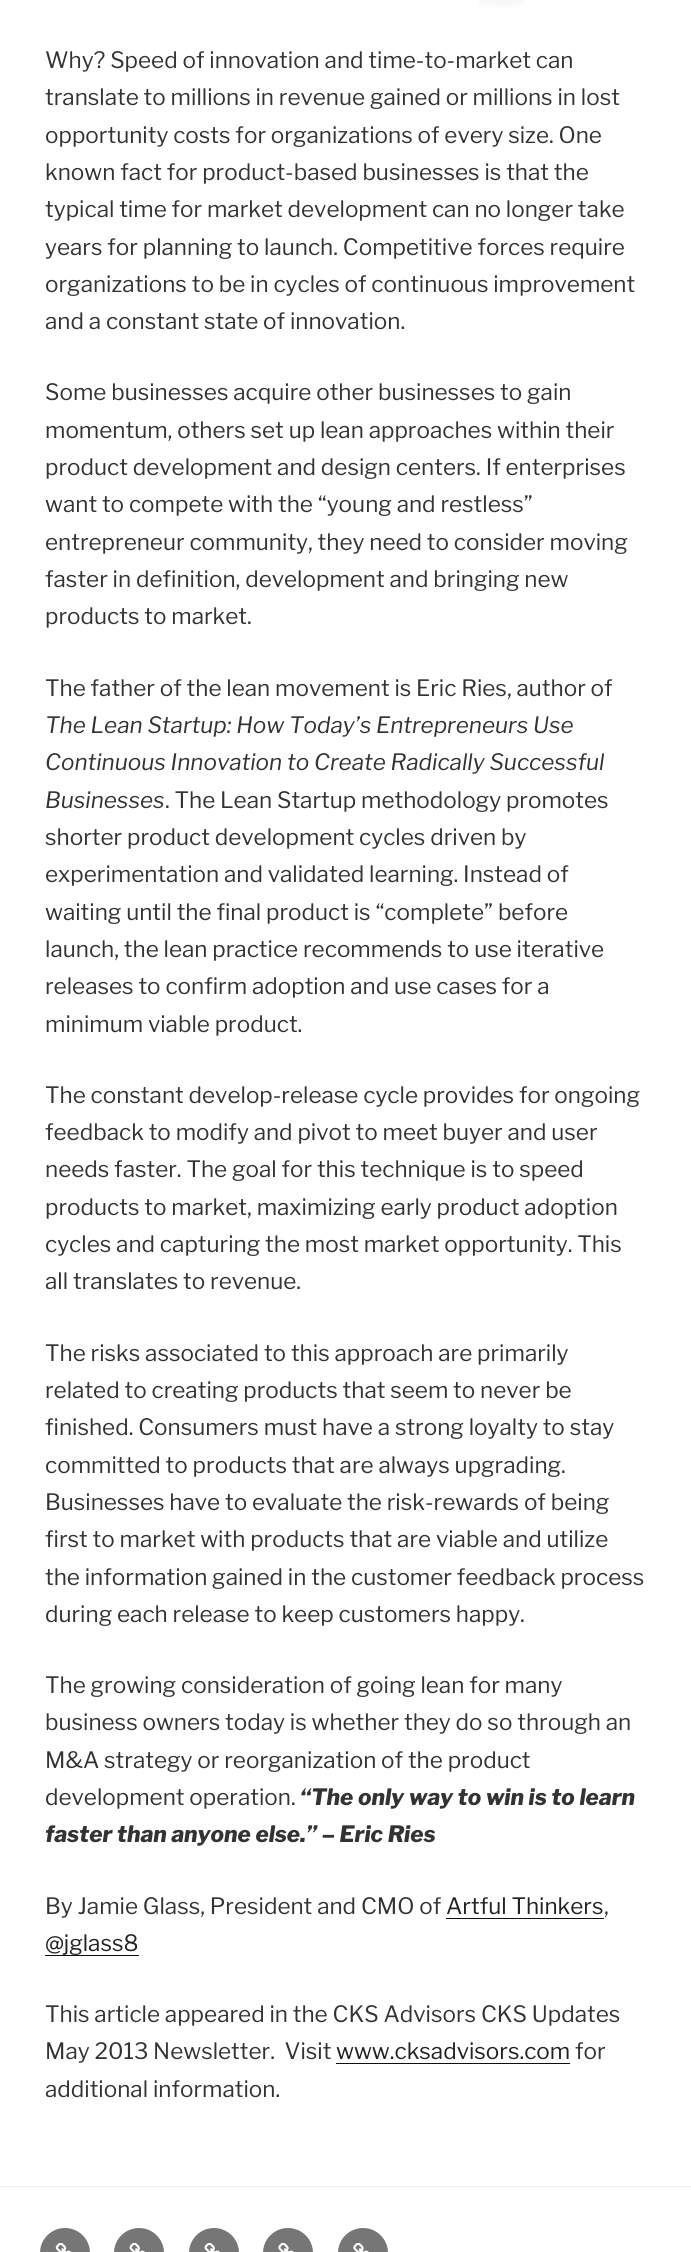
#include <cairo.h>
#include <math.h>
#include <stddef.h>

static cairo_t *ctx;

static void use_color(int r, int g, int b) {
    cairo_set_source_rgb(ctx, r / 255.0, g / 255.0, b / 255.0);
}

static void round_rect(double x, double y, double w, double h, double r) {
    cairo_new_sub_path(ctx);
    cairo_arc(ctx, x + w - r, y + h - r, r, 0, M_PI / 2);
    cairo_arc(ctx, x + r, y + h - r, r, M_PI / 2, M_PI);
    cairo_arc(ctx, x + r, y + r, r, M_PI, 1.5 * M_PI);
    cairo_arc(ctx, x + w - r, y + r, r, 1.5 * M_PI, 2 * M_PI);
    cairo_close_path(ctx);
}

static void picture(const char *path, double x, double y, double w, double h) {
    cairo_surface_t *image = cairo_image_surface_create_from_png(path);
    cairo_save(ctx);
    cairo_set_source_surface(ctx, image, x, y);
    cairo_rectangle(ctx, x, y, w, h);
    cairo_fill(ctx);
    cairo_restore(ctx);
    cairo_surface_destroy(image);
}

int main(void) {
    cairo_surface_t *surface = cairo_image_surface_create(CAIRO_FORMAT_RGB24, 691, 2252);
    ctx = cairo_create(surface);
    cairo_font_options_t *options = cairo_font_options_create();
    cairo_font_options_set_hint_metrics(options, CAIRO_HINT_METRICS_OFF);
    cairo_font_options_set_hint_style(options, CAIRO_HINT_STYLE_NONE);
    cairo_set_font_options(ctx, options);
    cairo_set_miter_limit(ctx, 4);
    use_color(255, 255, 255);
    cairo_paint(ctx);
    picture("img1.png", 478, 0, 46, 7);
    cairo_select_font_face(ctx, "Libre Franklin Thin", CAIRO_FONT_SLANT_NORMAL, CAIRO_FONT_WEIGHT_NORMAL);
    cairo_set_font_size(ctx, 22.5);
    use_color(51, 51, 51);
    cairo_move_to(ctx, 45, 68);
    cairo_show_text(ctx, "Why? Speed of innovation and time-to-market can");
    cairo_move_to(ctx, 45, 105);
    cairo_show_text(ctx, "translate to millions in revenue gained or millions in lost");
    cairo_move_to(ctx, 45, 143);
    cairo_show_text(ctx, "opportunity costs for organizations of every size. One");
    cairo_move_to(ctx, 45, 180);
    cairo_show_text(ctx, "known fact for product-based businesses is that the");
    cairo_move_to(ctx, 45, 217);
    cairo_show_text(ctx, "typical time for market development can no longer take");
    cairo_move_to(ctx, 45, 255);
    cairo_show_text(ctx, "years for planning to launch. Competitive forces require");
    cairo_move_to(ctx, 45, 292);
    cairo_show_text(ctx, "organizations to be in cycles of continuous improvement");
    cairo_move_to(ctx, 45, 329);
    cairo_show_text(ctx, "and a constant state of innovation.");
    cairo_move_to(ctx, 45, 400);
    cairo_show_text(ctx, "Some businesses acquire other businesses to gain");
    cairo_move_to(ctx, 45, 438);
    cairo_show_text(ctx, "momentum, others set up lean approaches within their");
    cairo_move_to(ctx, 45, 475);
    cairo_show_text(ctx, "product development and design centers. If enterprises");
    cairo_move_to(ctx, 45, 512);
    cairo_show_text(ctx, "want to compete with the “young and restless”");
    cairo_move_to(ctx, 45, 550);
    cairo_show_text(ctx, "entrepreneur community, they need to consider moving");
    cairo_move_to(ctx, 45, 587);
    cairo_show_text(ctx, "faster in definition, development and bringing new");
    cairo_move_to(ctx, 45, 624);
    cairo_show_text(ctx, "products to market.");
    cairo_move_to(ctx, 45, 696);
    cairo_show_text(ctx, "The father of the lean movement is Eric Ries, author of");
    cairo_select_font_face(ctx, "Libre Franklin Thin", CAIRO_FONT_SLANT_ITALIC, CAIRO_FONT_WEIGHT_NORMAL);
    cairo_move_to(ctx, 45, 733);
    cairo_show_text(ctx, "The Lean Startup: How Today’s Entrepreneurs Use");
    cairo_move_to(ctx, 45, 770);
    cairo_show_text(ctx, "Continuous Innovation to Create Radically Successful");
    cairo_move_to(ctx, 45, 808);
    cairo_show_text(ctx, "Businesses");
    cairo_select_font_face(ctx, "Libre Franklin Thin", CAIRO_FONT_SLANT_NORMAL, CAIRO_FONT_WEIGHT_NORMAL);
    cairo_move_to(ctx, 165, 808);
    cairo_show_text(ctx, ". The Lean Startup methodology promotes");
    cairo_move_to(ctx, 45, 845);
    cairo_show_text(ctx, "shorter product development cycles driven by");
    cairo_move_to(ctx, 45, 882);
    cairo_show_text(ctx, "experimentation and validated learning. Instead of");
    cairo_move_to(ctx, 45, 920);
    cairo_show_text(ctx, "waiting until the final product is “complete” before");
    cairo_move_to(ctx, 45, 957);
    cairo_show_text(ctx, "launch, the lean practice recommends to use iterative");
    cairo_move_to(ctx, 45, 994);
    cairo_show_text(ctx, "releases to confirm adoption and use cases for a");
    cairo_move_to(ctx, 45, 1032);
    cairo_show_text(ctx, "minimum viable product.");
    cairo_move_to(ctx, 45, 1103);
    cairo_show_text(ctx, "The constant develop-release cycle provides for ongoing");
    cairo_move_to(ctx, 45, 1140);
    cairo_show_text(ctx, "feedback to modify and pivot to meet buyer and user");
    cairo_move_to(ctx, 45, 1177);
    cairo_show_text(ctx, "needs faster. The goal for this technique is to speed");
    cairo_move_to(ctx, 45, 1215);
    cairo_show_text(ctx, "products to market, maximizing early product adoption");
    cairo_move_to(ctx, 45, 1252);
    cairo_show_text(ctx, "cycles and capturing the most market opportunity. This");
    cairo_move_to(ctx, 45, 1289);
    cairo_show_text(ctx, "all translates to revenue.");
    cairo_move_to(ctx, 45, 1361);
    cairo_show_text(ctx, "The risks associated to this approach are primarily");
    cairo_move_to(ctx, 45, 1398);
    cairo_show_text(ctx, "related to creating products that seem to never be");
    cairo_move_to(ctx, 45, 1435);
    cairo_show_text(ctx, "finished. Consumers must have a strong loyalty to stay");
    cairo_move_to(ctx, 45, 1473);
    cairo_show_text(ctx, "committed to products that are always upgrading.");
    cairo_move_to(ctx, 45, 1510);
    cairo_show_text(ctx, "Businesses have to evaluate the risk-rewards of being");
    cairo_move_to(ctx, 45, 1547);
    cairo_show_text(ctx, "first to market with products that are viable and utilize");
    cairo_move_to(ctx, 45, 1585);
    cairo_show_text(ctx, "the information gained in the customer feedback process");
    cairo_move_to(ctx, 45, 1622);
    cairo_show_text(ctx, "during each release to keep customers happy.");
    cairo_move_to(ctx, 45, 1693);
    cairo_show_text(ctx, "The growing consideration of going lean for many");
    cairo_move_to(ctx, 45, 1730);
    cairo_show_text(ctx, "business owners today is whether they do so through an");
    cairo_move_to(ctx, 45, 1768);
    cairo_show_text(ctx, "M&A strategy or reorganization of the product");
    cairo_move_to(ctx, 45, 1805);
    cairo_show_text(ctx, "development operation.");
    cairo_select_font_face(ctx, "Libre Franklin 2 Thin", CAIRO_FONT_SLANT_ITALIC, CAIRO_FONT_WEIGHT_NORMAL);
    cairo_move_to(ctx, 300, 1805);
    cairo_show_text(ctx, "“The only way to win is to learn");
    cairo_move_to(ctx, 45, 1842);
    cairo_show_text(ctx, "faster than anyone else.” – Eric Ries");
    cairo_select_font_face(ctx, "Libre Franklin Thin", CAIRO_FONT_SLANT_NORMAL, CAIRO_FONT_WEIGHT_NORMAL);
    cairo_move_to(ctx, 45, 1914);
    cairo_show_text(ctx, "By Jamie Glass, President and CMO of");
    use_color(34, 34, 34);
    cairo_move_to(ctx, 446, 1914);
    cairo_show_text(ctx, "Artful Thinkers");
    use_color(15, 15, 15);
    cairo_rectangle(ctx, 446, 1918, 158, 1);
    cairo_fill(ctx);
    use_color(51, 51, 51);
    cairo_move_to(ctx, 604, 1914);
    cairo_show_text(ctx, ",");
    use_color(34, 34, 34);
    cairo_move_to(ctx, 45, 1951);
    cairo_show_text(ctx, "@jglass8");
    use_color(15, 15, 15);
    cairo_rectangle(ctx, 45, 1955, 94, 1);
    cairo_fill(ctx);
    use_color(51, 51, 51);
    cairo_move_to(ctx, 45, 2022);
    cairo_show_text(ctx, "This article appeared in the CKS Advisors CKS Updates");
    cairo_move_to(ctx, 45, 2059);
    cairo_show_text(ctx, "May 2013 Newsletter.  Visit");
    use_color(34, 34, 34);
    cairo_move_to(ctx, 336, 2059);
    cairo_show_text(ctx, "www.cksadvisors.com");
    use_color(15, 15, 15);
    cairo_rectangle(ctx, 336, 2063, 234, 1);
    cairo_fill(ctx);
    use_color(51, 51, 51);
    cairo_move_to(ctx, 575, 2059);
    cairo_show_text(ctx, "for");
    cairo_move_to(ctx, 45, 2097);
    cairo_show_text(ctx, "additional information.");
    use_color(238, 238, 238);
    cairo_rectangle(ctx, 0, 2186, 691, 1);
    cairo_fill(ctx);
    use_color(118, 118, 118);
    round_rect(40, 2228, 50, 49, 25);
    cairo_fill(ctx);
    picture("img2.png", 55, 2243, 17, 9);
    round_rect(114, 2228, 50, 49, 25);
    cairo_fill(ctx);
    picture("img3.png", 129, 2243, 16, 9);
    round_rect(189, 2228, 50, 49, 25);
    cairo_fill(ctx);
    picture("img3.png", 204, 2243, 16, 9);
    round_rect(263, 2228, 50, 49, 25);
    cairo_fill(ctx);
    picture("img4.png", 278, 2243, 16, 9);
    round_rect(338, 2228, 50, 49, 25);
    cairo_fill(ctx);
    picture("img4.png", 353, 2243, 16, 9);
    cairo_surface_write_to_png(surface, "result.png");
    cairo_font_options_destroy(options);
    cairo_destroy(ctx);
    cairo_surface_destroy(surface);
    return 0;
}
